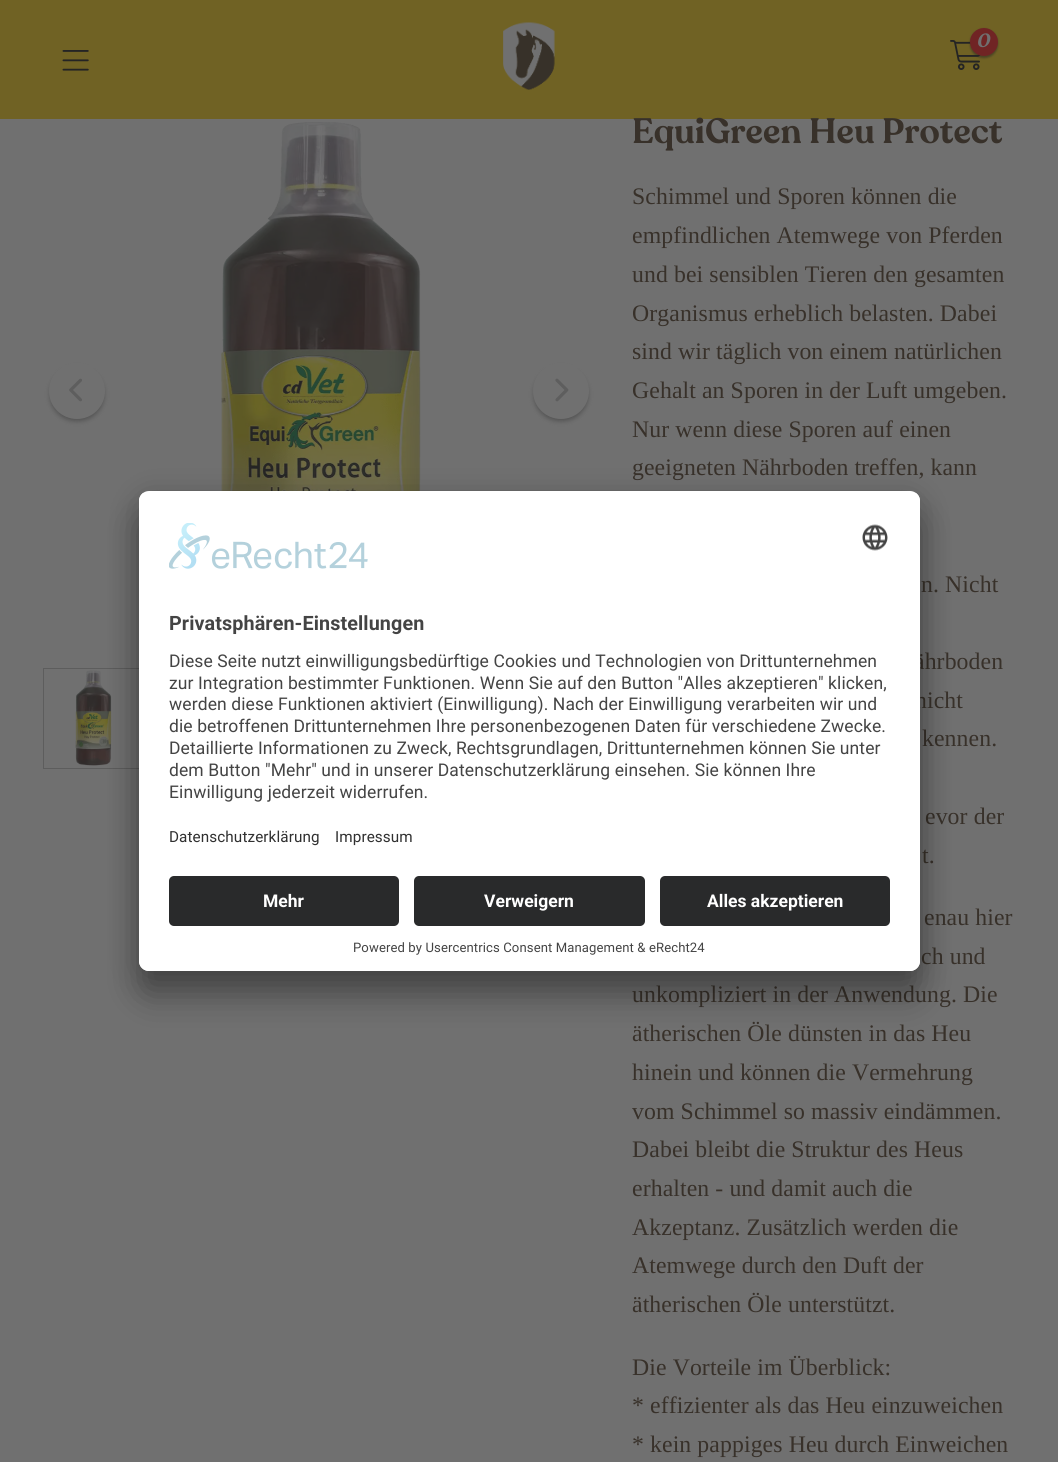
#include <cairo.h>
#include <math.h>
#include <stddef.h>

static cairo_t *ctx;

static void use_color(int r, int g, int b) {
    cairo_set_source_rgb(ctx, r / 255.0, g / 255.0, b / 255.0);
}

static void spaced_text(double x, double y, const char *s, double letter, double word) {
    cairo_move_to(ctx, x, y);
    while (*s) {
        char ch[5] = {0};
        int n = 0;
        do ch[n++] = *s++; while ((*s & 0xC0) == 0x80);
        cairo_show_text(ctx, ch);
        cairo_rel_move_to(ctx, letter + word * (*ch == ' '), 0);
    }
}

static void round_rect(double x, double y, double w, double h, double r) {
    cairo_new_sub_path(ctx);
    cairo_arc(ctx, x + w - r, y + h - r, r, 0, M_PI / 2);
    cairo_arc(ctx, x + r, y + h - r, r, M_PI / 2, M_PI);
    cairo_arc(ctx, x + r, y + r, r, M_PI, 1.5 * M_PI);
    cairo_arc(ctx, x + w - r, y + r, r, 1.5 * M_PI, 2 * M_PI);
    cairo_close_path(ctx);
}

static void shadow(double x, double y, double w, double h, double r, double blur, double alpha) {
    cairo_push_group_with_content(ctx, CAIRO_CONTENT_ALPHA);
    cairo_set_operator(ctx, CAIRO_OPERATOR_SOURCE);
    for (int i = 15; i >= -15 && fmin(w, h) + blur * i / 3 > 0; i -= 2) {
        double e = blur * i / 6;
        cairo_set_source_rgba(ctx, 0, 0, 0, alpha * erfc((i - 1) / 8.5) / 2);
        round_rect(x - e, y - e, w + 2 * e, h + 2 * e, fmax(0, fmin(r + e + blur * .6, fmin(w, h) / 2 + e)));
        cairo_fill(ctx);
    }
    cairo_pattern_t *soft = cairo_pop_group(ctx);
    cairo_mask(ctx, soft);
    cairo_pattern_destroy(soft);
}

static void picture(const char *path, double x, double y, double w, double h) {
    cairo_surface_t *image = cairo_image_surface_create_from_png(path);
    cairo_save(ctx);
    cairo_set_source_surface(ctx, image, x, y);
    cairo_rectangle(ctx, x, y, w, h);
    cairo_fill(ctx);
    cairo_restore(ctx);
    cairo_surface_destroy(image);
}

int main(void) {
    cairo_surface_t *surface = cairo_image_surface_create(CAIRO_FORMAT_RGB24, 1058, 1462);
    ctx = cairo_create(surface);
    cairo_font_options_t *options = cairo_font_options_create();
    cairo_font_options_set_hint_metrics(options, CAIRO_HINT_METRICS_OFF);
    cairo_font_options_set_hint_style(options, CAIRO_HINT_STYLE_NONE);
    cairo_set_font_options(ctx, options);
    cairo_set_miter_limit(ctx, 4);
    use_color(112, 112, 112);
    cairo_paint(ctx);
    use_color(112, 98, 36);
    cairo_rectangle(ctx, 0, 0, 1058, 119);
    cairo_fill(ctx);
    picture("img1.png", 503, 22, 52, 68);
    picture("img2.png", 950, 40, 31, 30);
    use_color(36, 36, 36);
    shadow(970, 29, 28, 29, 14, 1, 0.5);
    use_color(112, 36, 36);
    cairo_arc(ctx, 984, 42, 14, 0, 2 * M_PI);
    cairo_fill(ctx);
    cairo_select_font_face(ctx, "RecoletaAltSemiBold", CAIRO_FONT_SLANT_ITALIC, CAIRO_FONT_WEIGHT_NORMAL);
    cairo_set_font_size(ctx, 19);
    use_color(112, 112, 112);
    spaced_text(976, 47, "0", 1, 0);
    picture("img3.png", 62, 50, 27, 21);
    use_color(51, 51, 51);
    shadow(50, 368, 54, 53, 26.5, 2.5, 0.5);
    use_color(112, 112, 112);
    cairo_arc(ctx, 77, 391, 28, 0, 2 * M_PI);
    cairo_fill(ctx);
    picture("img4.png", 69, 378, 13, 24);
    picture("img5.png", 221, 122, 200, 369);
    use_color(51, 51, 51);
    shadow(534, 368, 54, 53, 26.5, 2.5, 0.5);
    use_color(112, 112, 112);
    cairo_arc(ctx, 561, 391, 28, 0, 2 * M_PI);
    cairo_fill(ctx);
    picture("img6.png", 555, 378, 14, 24);
    cairo_rectangle(ctx, 43.5, 668.5, 100, 100);
    cairo_set_source_rgba(ctx, 0.141, 0.141, 0.141, 0.25);
    cairo_set_line_width(ctx, 1);
    cairo_stroke(ctx);
    picture("img7.png", 75, 670, 37, 96);
    cairo_select_font_face(ctx, "RecoletaAltSemiBold", CAIRO_FONT_SLANT_NORMAL, CAIRO_FONT_WEIGHT_NORMAL);
    cairo_set_font_size(ctx, 35);
    use_color(56, 49, 42);
    spaced_text(632, 143, "EquiGreen Heu Protect", 0.1, 0);
    cairo_select_font_face(ctx, "Liberation Serif", CAIRO_FONT_SLANT_NORMAL, CAIRO_FONT_WEIGHT_NORMAL);
    cairo_set_font_size(ctx, 23.75);
    spaced_text(632, 204, "Schimmel und Sporen können die", 0.1, 0);
    spaced_text(632, 243, "empfindlichen Atemwege von Pferden", 0.1, 0);
    spaced_text(632, 282, "und bei sensiblen Tieren den gesamten", 0.1, 0);
    spaced_text(632, 321, "Organismus erheblich belasten. Dabei", 0.1, 0);
    spaced_text(632, 359, "sind wir täglich von einem natürlichen", 0.1, 0);
    spaced_text(632, 398, "Gehalt an Sporen in der Luft umgeben.", 0.1, 0);
    spaced_text(632, 437, "Nur wenn diese Sporen auf einen", 0.1, 0);
    spaced_text(632, 475, "geeigneten Nährboden treffen, kann", 0.1, 0);
    spaced_text(921, 592, "n. Nicht", 0.1, 0);
    spaced_text(914, 669, "ährboden", 0.1, 0);
    spaced_text(915, 708, "nicht", 0.1, 0);
    spaced_text(922, 746, "kennen.", 0.1, 0);
    spaced_text(925, 824, "evor der", 0.1, 0);
    spaced_text(922, 863, "t.", 0.1, 0);
    spaced_text(924, 925, "enau hier", 0.1, 0);
    spaced_text(921, 964, "ch und", 0.1, 0);
    spaced_text(632, 1002, "unkompliziert in der Anwendung. Die", 0.1, 0);
    spaced_text(632, 1041, "ätherischen Öle dünsten in das Heu", 0.1, 0);
    spaced_text(632, 1080, "hinein und können die Vermehrung", 0.1, 0);
    spaced_text(632, 1119, "vom Schimmel so massiv eindämmen.", 0.1, 0);
    spaced_text(632, 1157, "Dabei bleibt die Struktur des Heus", 0.1, 0);
    spaced_text(632, 1196, "erhalten - und damit auch die", 0.1, 0);
    spaced_text(632, 1235, "Akzeptanz. Zusätzlich werden die", 0.1, 0);
    spaced_text(632, 1273, "Atemwege durch den Duft der", 0.1, 0);
    spaced_text(632, 1312, "ätherischen Öle unterstützt.", 0.1, 0);
    spaced_text(632, 1375, "Die Vorteile im Überblick:", 0.1, 0);
    spaced_text(632, 1413, "* effizienter als das Heu einzuweichen", 0.1, 0);
    spaced_text(632, 1452, "* kein pappiges Heu durch Einweichen", 0.1, 0);
    use_color(0, 0, 0);
    shadow(139, 516, 781, 480, 10, 17.5, 0.3);
    shadow(139, 498, 781, 480, 10, 16, 0.22);
    use_color(255, 255, 255);
    round_rect(139, 491, 781, 480, 10);
    cairo_fill(ctx);
    cairo_save(ctx);
    round_rect(139, 491, 781, 480, 10);
    cairo_clip(ctx);
    cairo_new_path(ctx);
    cairo_move_to(ctx, 149, 491);
    cairo_line_to(ctx, 910, 491);
    cairo_curve_to(ctx, 915.5, 491, 920, 495.5, 920, 501);
    cairo_line_to(ctx, 920, 866);
    cairo_line_to(ctx, 139, 866);
    cairo_line_to(ctx, 139, 501);
    cairo_curve_to(ctx, 139, 495.5, 143.5, 491, 149, 491);
    cairo_close_path(ctx);
    cairo_clip(ctx);
    cairo_rectangle(ctx, 139, 493, 781, 373);
    cairo_fill(ctx);
    cairo_restore(ctx);
    picture("img8.png", 169, 523, 199, 46);
    picture("img9.png", 862, 524, 26, 27);
    cairo_select_font_face(ctx, "Roboto", CAIRO_FONT_SLANT_NORMAL, CAIRO_FONT_WEIGHT_BOLD);
    cairo_set_font_size(ctx, 19.75);
    use_color(68, 68, 68);
    spaced_text(169, 630, "Privatsphären-Einstellungen", 0.1, 0);
    cairo_select_font_face(ctx, "Roboto", CAIRO_FONT_SLANT_NORMAL, CAIRO_FONT_WEIGHT_NORMAL);
    cairo_set_font_size(ctx, 17.5);
    spaced_text(169, 667, "Diese Seite nutzt einwilligungsbedürftige Cookies und Technologien von Drittunternehmen", 0.1, 0);
    spaced_text(169, 689, "zur Integration bestimmter Funktionen. Wenn Sie auf den Button \"Alles akzeptieren\" klicken,", 0.1, 0);
    spaced_text(169, 710, "werden diese Funktionen aktiviert (Einwilligung). Nach der Einwilligung verarbeiten wir und", 0.1, 0);
    spaced_text(169, 732, "die betroffenen Drittunternehmen Ihre personenbezogenen Daten für verschiedene Zwecke.", 0.1, 0);
    spaced_text(169, 754, "Detaillierte Informationen zu Zweck, Rechtsgrundlagen, Drittunternehmen können Sie unter", 0.1, 0);
    spaced_text(169, 776, "dem Button \"Mehr\" und in unserer Datenschutzerklärung einsehen. Sie können Ihre", 0.1, 0);
    spaced_text(169, 798, "Einwilligung jederzeit widerrufen.", 0.1, 0);
    cairo_set_font_size(ctx, 15.25);
    use_color(48, 48, 48);
    spaced_text(169, 842, "Datenschutzerklärung", 0.1, 0);
    spaced_text(335, 842, "Impressum", 0.1, 0);
    use_color(255, 255, 255);
    cairo_new_path(ctx);
    cairo_move_to(ctx, 139, 866);
    cairo_line_to(ctx, 920, 866);
    cairo_line_to(ctx, 920, 961);
    cairo_curve_to(ctx, 920, 966.5, 915.5, 971, 910, 971);
    cairo_line_to(ctx, 149, 971);
    cairo_curve_to(ctx, 143.5, 971, 139, 966.5, 139, 961);
    cairo_close_path(ctx);
    cairo_fill(ctx);
    use_color(41, 42, 43);
    round_rect(169, 876, 230, 50, 5);
    cairo_fill(ctx);
    cairo_select_font_face(ctx, "Roboto", CAIRO_FONT_SLANT_NORMAL, CAIRO_FONT_WEIGHT_BOLD);
    cairo_set_font_size(ctx, 17.5);
    use_color(255, 255, 255);
    cairo_move_to(ctx, 263, 907);
    cairo_show_text(ctx, "Mehr");
    use_color(41, 42, 43);
    round_rect(414, 876, 231, 50, 5);
    cairo_fill(ctx);
    use_color(255, 255, 255);
    cairo_move_to(ctx, 484, 907);
    cairo_show_text(ctx, "Verweigern");
    use_color(41, 42, 43);
    round_rect(660, 876, 230, 50, 5);
    cairo_fill(ctx);
    use_color(255, 255, 255);
    cairo_move_to(ctx, 707, 907);
    cairo_show_text(ctx, "Alles akzeptieren");
    cairo_select_font_face(ctx, "Roboto", CAIRO_FONT_SLANT_NORMAL, CAIRO_FONT_WEIGHT_NORMAL);
    cairo_set_font_size(ctx, 13.1);
    use_color(68, 68, 68);
    spaced_text(353, 952, "Powered by Usercentrics Consent Management & eRecht24", 0.1, 0);
    cairo_surface_write_to_png(surface, "result.png");
    cairo_font_options_destroy(options);
    cairo_destroy(ctx);
    cairo_surface_destroy(surface);
    return 0;
}
